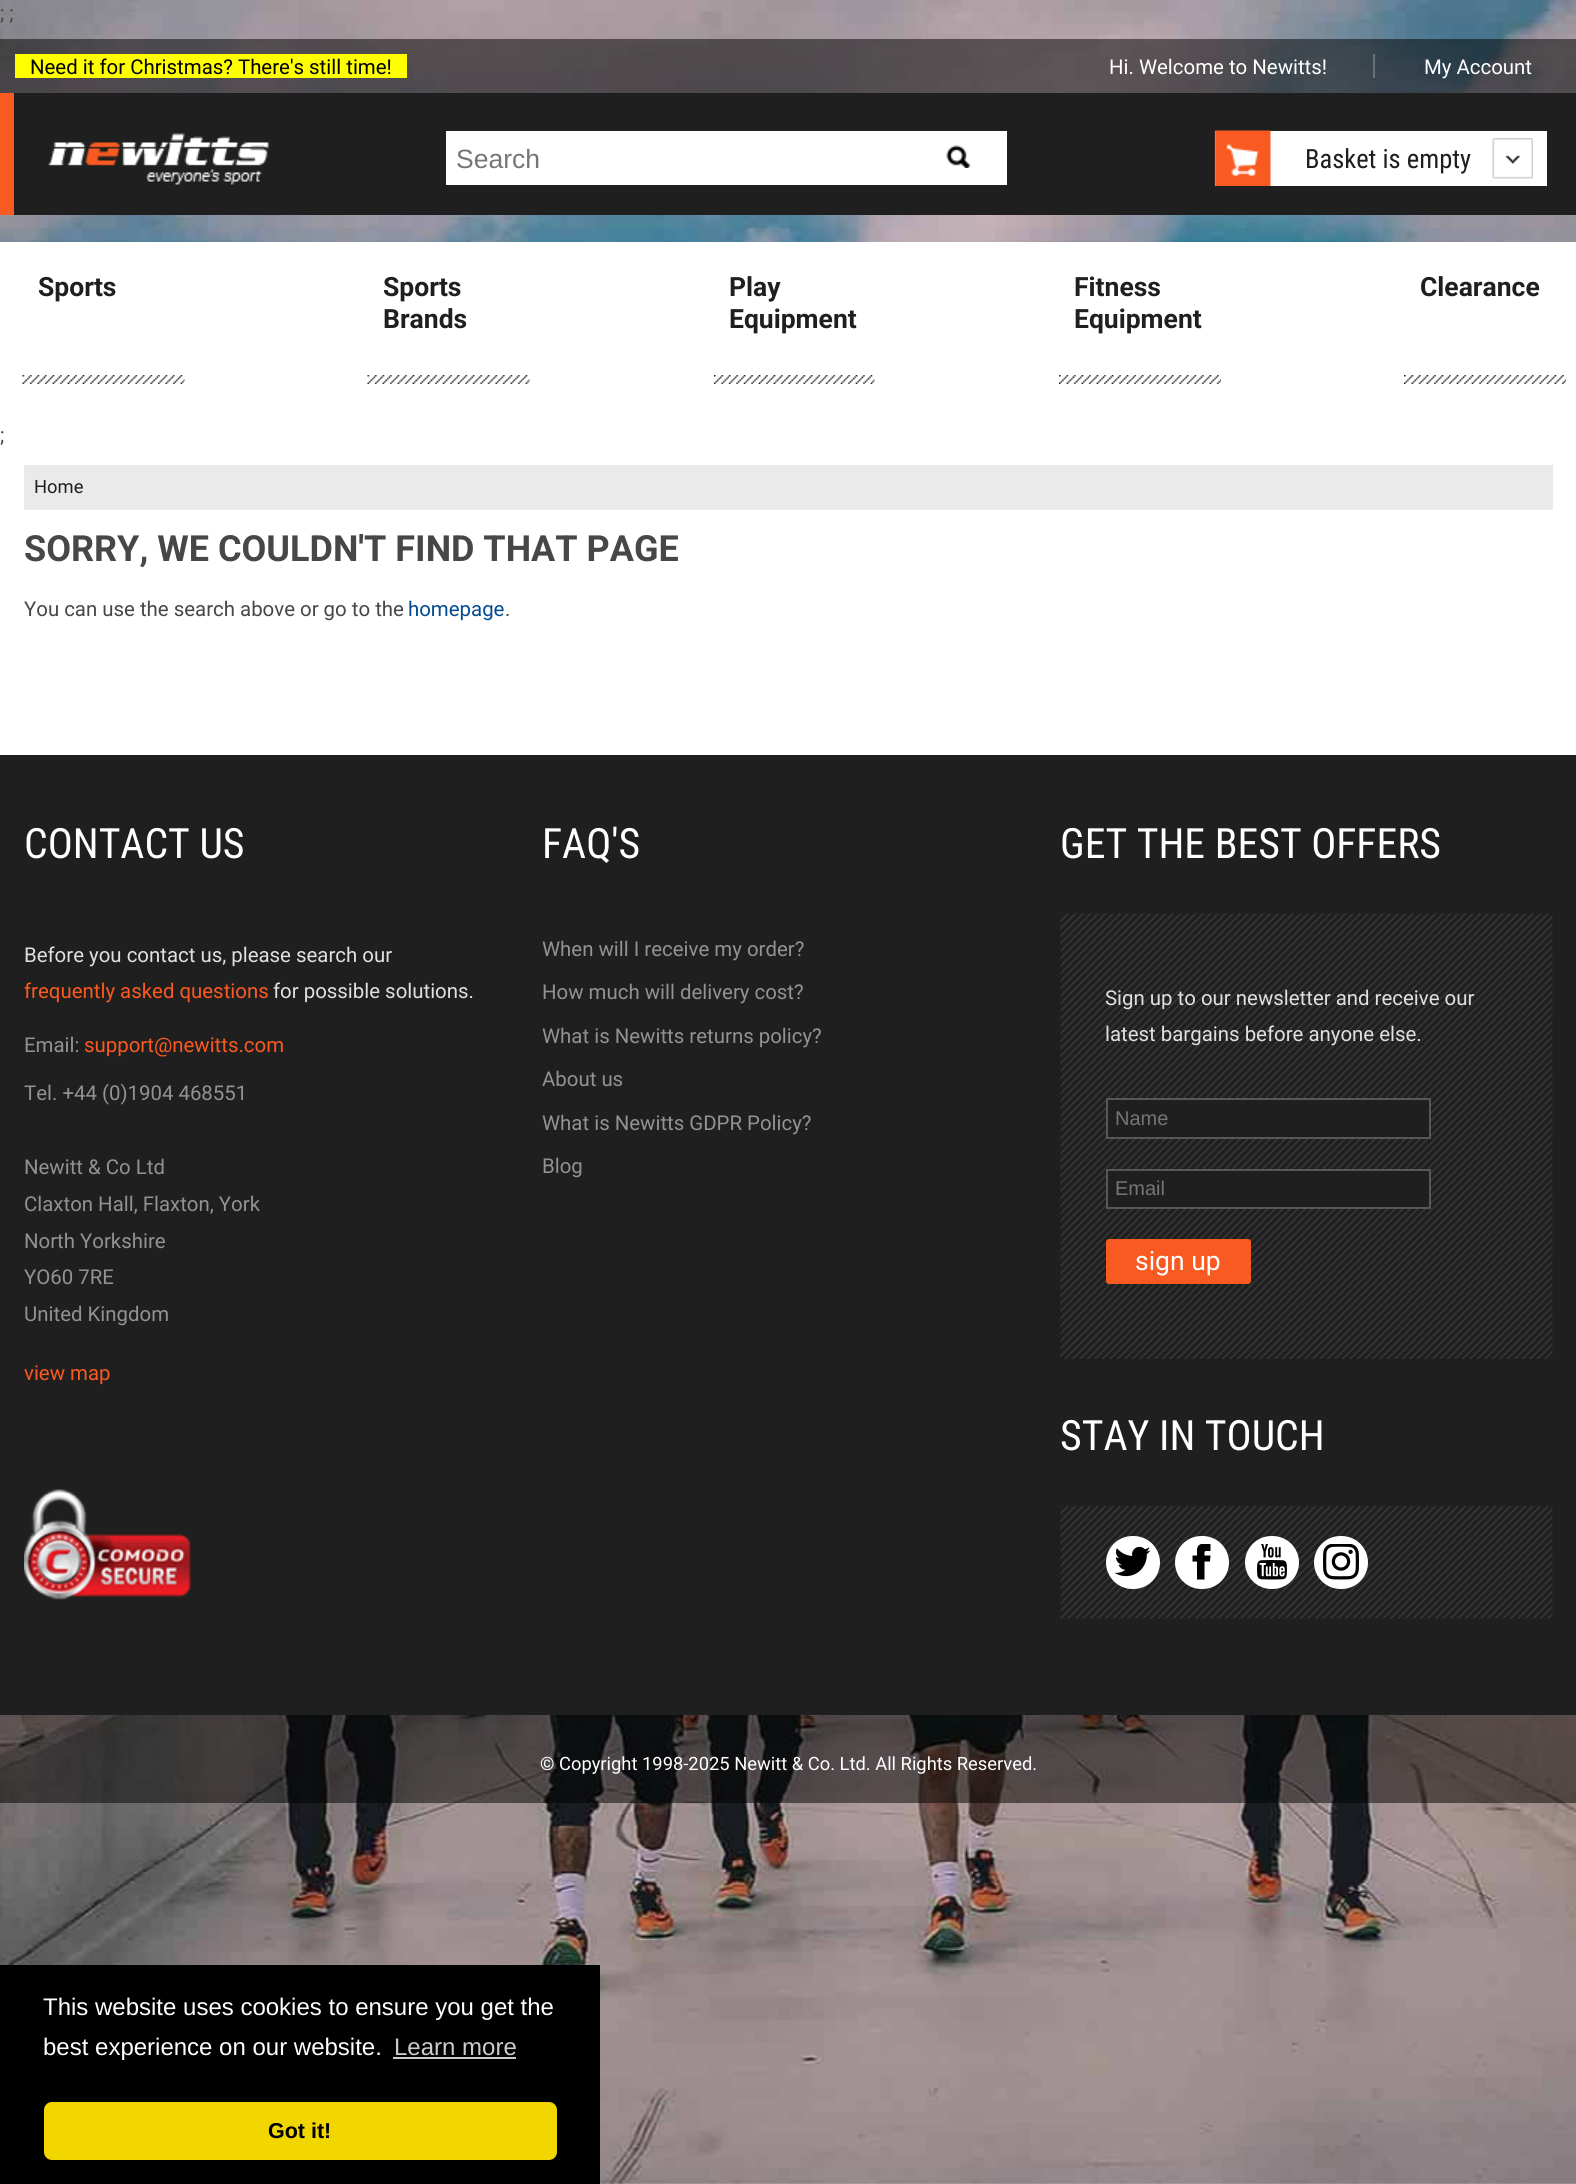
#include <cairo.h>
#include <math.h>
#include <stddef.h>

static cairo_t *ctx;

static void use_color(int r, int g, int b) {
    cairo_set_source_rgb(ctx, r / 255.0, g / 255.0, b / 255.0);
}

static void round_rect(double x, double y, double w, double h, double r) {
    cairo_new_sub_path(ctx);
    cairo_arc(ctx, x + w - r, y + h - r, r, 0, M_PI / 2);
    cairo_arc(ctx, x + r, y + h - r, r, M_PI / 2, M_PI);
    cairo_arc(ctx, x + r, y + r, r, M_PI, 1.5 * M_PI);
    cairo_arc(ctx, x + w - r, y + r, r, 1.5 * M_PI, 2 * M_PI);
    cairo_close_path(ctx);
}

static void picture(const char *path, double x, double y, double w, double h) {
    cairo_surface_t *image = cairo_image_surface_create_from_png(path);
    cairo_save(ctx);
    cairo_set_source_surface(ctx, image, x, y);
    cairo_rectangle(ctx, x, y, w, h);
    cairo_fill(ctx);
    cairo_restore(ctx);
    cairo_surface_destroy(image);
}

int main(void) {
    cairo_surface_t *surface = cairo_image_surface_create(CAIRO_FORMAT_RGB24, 1576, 2184);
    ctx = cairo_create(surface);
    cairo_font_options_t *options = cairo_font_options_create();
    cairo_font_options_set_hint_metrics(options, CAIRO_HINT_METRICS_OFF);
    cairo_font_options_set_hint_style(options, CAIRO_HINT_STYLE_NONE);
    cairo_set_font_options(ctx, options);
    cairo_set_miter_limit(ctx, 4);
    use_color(255, 255, 255);
    cairo_paint(ctx);
    picture("img1.png", 0, 0, 1576, 2184);
    cairo_select_font_face(ctx, "Roboto", CAIRO_FONT_SLANT_NORMAL, CAIRO_FONT_WEIGHT_NORMAL);
    cairo_set_font_size(ctx, 20.4);
    use_color(71, 71, 71);
    cairo_move_to(ctx, 0, 20);
    cairo_show_text(ctx, "; ;");
    cairo_set_source_rgba(ctx, 0, 0, 0, 0.5);
    cairo_rectangle(ctx, 0, 39, 1576, 54);
    cairo_fill(ctx);
    use_color(255, 255, 0);
    cairo_rectangle(ctx, 15, 54, 392, 24);
    cairo_fill(ctx);
    use_color(0, 0, 0);
    cairo_move_to(ctx, 30, 74);
    cairo_show_text(ctx, "Need it for Christmas? There's still time!");
    use_color(103, 113, 115);
    cairo_rectangle(ctx, 1373, 54, 2, 24);
    cairo_fill(ctx);
    use_color(255, 255, 255);
    cairo_move_to(ctx, 1109, 74);
    cairo_show_text(ctx, "Hi. Welcome to Newitts!");
    cairo_move_to(ctx, 1424, 74);
    cairo_show_text(ctx, "My Account");
    use_color(31, 31, 31);
    cairo_rectangle(ctx, 14, 93, 1562, 122);
    cairo_fill(ctx);
    use_color(249, 90, 33);
    cairo_rectangle(ctx, 0, 93, 14, 122);
    cairo_fill(ctx);
    picture("img2.png", 48, 133, 221, 53);
    use_color(255, 255, 255);
    cairo_rectangle(ctx, 446, 131, 561, 54);
    cairo_fill(ctx);
    cairo_select_font_face(ctx, "Liberation Sans", CAIRO_FONT_SLANT_NORMAL, CAIRO_FONT_WEIGHT_NORMAL);
    cairo_set_font_size(ctx, 26.5);
    use_color(117, 117, 117);
    cairo_move_to(ctx, 456, 168);
    cairo_show_text(ctx, "Search");
    picture("img3.png", 946, 145, 25, 23);
    use_color(255, 255, 255);
    cairo_rectangle(ctx, 1215, 131, 332, 55);
    cairo_fill(ctx);
    picture("img4.png", 1230, 144, 24, 31);
    picture("img5.png", 1214, 130, 57, 56);
    picture("img6.png", 1492, 138, 41, 41);
    cairo_select_font_face(ctx, "Roboto Condensed", CAIRO_FONT_SLANT_NORMAL, CAIRO_FONT_WEIGHT_NORMAL);
    use_color(31, 31, 31);
    cairo_move_to(ctx, 1305, 168);
    cairo_show_text(ctx, "Basket is empty");
    use_color(255, 255, 255);
    cairo_rectangle(ctx, 0, 242, 1576, 513);
    cairo_fill(ctx);
    picture("img7.png", 22, 375, 163, 9);
    cairo_select_font_face(ctx, "Roboto", CAIRO_FONT_SLANT_NORMAL, CAIRO_FONT_WEIGHT_BOLD);
    use_color(31, 31, 31);
    cairo_move_to(ctx, 38, 296);
    cairo_show_text(ctx, "Sports");
    picture("img7.png", 367, 375, 163, 9);
    cairo_move_to(ctx, 383, 296);
    cairo_show_text(ctx, "Sports");
    cairo_move_to(ctx, 383, 328);
    cairo_show_text(ctx, "Brands");
    picture("img8.png", 714, 375, 161, 9);
    cairo_move_to(ctx, 729, 296);
    cairo_show_text(ctx, "Play");
    cairo_move_to(ctx, 729, 328);
    cairo_show_text(ctx, "Equipment");
    picture("img9.png", 1059, 375, 162, 9);
    cairo_move_to(ctx, 1074, 296);
    cairo_show_text(ctx, "Fitness");
    cairo_move_to(ctx, 1074, 328);
    cairo_show_text(ctx, "Equipment");
    picture("img9.png", 1404, 375, 162, 9);
    cairo_move_to(ctx, 1420, 296);
    cairo_show_text(ctx, "Clearance");
    cairo_select_font_face(ctx, "Roboto", CAIRO_FONT_SLANT_NORMAL, CAIRO_FONT_WEIGHT_NORMAL);
    cairo_set_font_size(ctx, 20.4);
    use_color(71, 71, 71);
    cairo_move_to(ctx, 0, 442);
    cairo_show_text(ctx, ";");
    use_color(234, 234, 234);
    cairo_rectangle(ctx, 24, 465, 1529, 45);
    cairo_fill(ctx);
    cairo_set_font_size(ctx, 18.35);
    use_color(31, 31, 31);
    cairo_move_to(ctx, 34, 493);
    cairo_show_text(ctx, "Home");
    cairo_select_font_face(ctx, "Roboto", CAIRO_FONT_SLANT_NORMAL, CAIRO_FONT_WEIGHT_BOLD);
    cairo_set_font_size(ctx, 36);
    use_color(71, 71, 71);
    cairo_move_to(ctx, 24, 561);
    cairo_show_text(ctx, "SORRY, WE COULDN'T FIND THAT PAGE");
    cairo_select_font_face(ctx, "Roboto", CAIRO_FONT_SLANT_NORMAL, CAIRO_FONT_WEIGHT_NORMAL);
    cairo_set_font_size(ctx, 20.4);
    cairo_move_to(ctx, 24, 616);
    cairo_show_text(ctx, "You can use the search above or go to the");
    use_color(0, 75, 145);
    cairo_move_to(ctx, 408, 616);
    cairo_show_text(ctx, "homepage");
    use_color(71, 71, 71);
    cairo_move_to(ctx, 505, 616);
    cairo_show_text(ctx, ".");
    use_color(31, 31, 31);
    cairo_rectangle(ctx, 0, 755, 1576, 960);
    cairo_fill(ctx);
    cairo_select_font_face(ctx, "Roboto Condensed", CAIRO_FONT_SLANT_NORMAL, CAIRO_FONT_WEIGHT_NORMAL);
    cairo_set_font_size(ctx, 41.75);
    use_color(255, 255, 255);
    cairo_move_to(ctx, 24, 858);
    cairo_show_text(ctx, "CONTACT US");
    cairo_select_font_face(ctx, "Roboto", CAIRO_FONT_SLANT_NORMAL, CAIRO_FONT_WEIGHT_NORMAL);
    cairo_set_font_size(ctx, 20.4);
    use_color(224, 224, 224);
    cairo_move_to(ctx, 24, 962);
    cairo_show_text(ctx, "Before you contact us, please search our");
    use_color(249, 90, 33);
    cairo_move_to(ctx, 24, 998);
    cairo_show_text(ctx, "frequently asked questions");
    use_color(224, 224, 224);
    cairo_move_to(ctx, 273, 998);
    cairo_show_text(ctx, "for possible solutions.");
    use_color(146, 146, 146);
    cairo_move_to(ctx, 24, 1052);
    cairo_show_text(ctx, "Email:");
    use_color(249, 90, 33);
    cairo_move_to(ctx, 84, 1052);
    cairo_show_text(ctx, "support@newitts.com");
    use_color(146, 146, 146);
    cairo_move_to(ctx, 24, 1100);
    cairo_show_text(ctx, "Tel. +44 (0)1904 468551");
    cairo_move_to(ctx, 24, 1174);
    cairo_show_text(ctx, "Newitt & Co Ltd");
    cairo_move_to(ctx, 24, 1211);
    cairo_show_text(ctx, "Claxton Hall, Flaxton, York");
    cairo_move_to(ctx, 24, 1248);
    cairo_show_text(ctx, "North Yorkshire");
    cairo_move_to(ctx, 24, 1284);
    cairo_show_text(ctx, "YO60 7RE");
    cairo_move_to(ctx, 24, 1321);
    cairo_show_text(ctx, "United Kingdom");
    use_color(249, 90, 33);
    cairo_move_to(ctx, 24, 1380);
    cairo_show_text(ctx, "view map");
    picture("img10.png", 24, 1489, 167, 111);
    cairo_select_font_face(ctx, "Roboto Condensed", CAIRO_FONT_SLANT_NORMAL, CAIRO_FONT_WEIGHT_NORMAL);
    cairo_set_font_size(ctx, 41.75);
    use_color(255, 255, 255);
    cairo_move_to(ctx, 542, 858);
    cairo_show_text(ctx, "FAQ'S");
    cairo_select_font_face(ctx, "Roboto", CAIRO_FONT_SLANT_NORMAL, CAIRO_FONT_WEIGHT_NORMAL);
    cairo_set_font_size(ctx, 20.4);
    use_color(146, 146, 146);
    cairo_move_to(ctx, 542, 956);
    cairo_show_text(ctx, "When will I receive my order?");
    cairo_move_to(ctx, 542, 999);
    cairo_show_text(ctx, "How much will delivery cost?");
    cairo_move_to(ctx, 542, 1043);
    cairo_show_text(ctx, "What is Newitts returns policy?");
    cairo_move_to(ctx, 542, 1086);
    cairo_show_text(ctx, "About us");
    cairo_move_to(ctx, 542, 1130);
    cairo_show_text(ctx, "What is Newitts GDPR Policy?");
    cairo_move_to(ctx, 542, 1173);
    cairo_show_text(ctx, "Blog");
    cairo_select_font_face(ctx, "Roboto Condensed", CAIRO_FONT_SLANT_NORMAL, CAIRO_FONT_WEIGHT_NORMAL);
    cairo_set_font_size(ctx, 41.75);
    use_color(255, 255, 255);
    cairo_move_to(ctx, 1060, 858);
    cairo_show_text(ctx, "GET THE BEST OFFERS");
    picture("img11.png", 1060, 913, 493, 446);
    cairo_select_font_face(ctx, "Roboto", CAIRO_FONT_SLANT_NORMAL, CAIRO_FONT_WEIGHT_NORMAL);
    cairo_set_font_size(ctx, 20.4);
    use_color(224, 224, 224);
    cairo_move_to(ctx, 1105, 1005);
    cairo_show_text(ctx, "Sign up to our newsletter and receive our");
    cairo_move_to(ctx, 1105, 1041);
    cairo_show_text(ctx, "latest bargains before anyone else.");
    use_color(31, 31, 31);
    cairo_rectangle(ctx, 1107, 1099, 323, 39);
    cairo_fill_preserve(ctx);
    use_color(87, 87, 87);
    cairo_stroke(ctx);
    cairo_select_font_face(ctx, "Liberation Sans", CAIRO_FONT_SLANT_NORMAL, CAIRO_FONT_WEIGHT_NORMAL);
    cairo_set_font_size(ctx, 20);
    use_color(117, 117, 117);
    cairo_move_to(ctx, 1115, 1125);
    cairo_show_text(ctx, "Name");
    use_color(31, 31, 31);
    cairo_rectangle(ctx, 1107, 1170, 323, 38);
    cairo_fill_preserve(ctx);
    use_color(87, 87, 87);
    cairo_stroke(ctx);
    use_color(117, 117, 117);
    cairo_move_to(ctx, 1115, 1195);
    cairo_show_text(ctx, "Email");
    use_color(249, 90, 33);
    round_rect(1106, 1239, 145, 45, 3);
    cairo_fill(ctx);
    cairo_select_font_face(ctx, "Roboto", CAIRO_FONT_SLANT_NORMAL, CAIRO_FONT_WEIGHT_NORMAL);
    cairo_set_font_size(ctx, 26.5);
    use_color(255, 255, 255);
    cairo_move_to(ctx, 1135, 1270);
    cairo_show_text(ctx, "sign up");
    cairo_select_font_face(ctx, "Roboto Condensed", CAIRO_FONT_SLANT_NORMAL, CAIRO_FONT_WEIGHT_NORMAL);
    cairo_set_font_size(ctx, 41.75);
    cairo_move_to(ctx, 1060, 1450);
    cairo_show_text(ctx, "STAY IN TOUCH");
    picture("img12.png", 1060, 1506, 493, 113);
    round_rect(1106, 1536, 54, 53, 26.5);
    cairo_fill(ctx);
    picture("img13.png", 1115, 1546, 36, 31);
    round_rect(1175, 1536, 54, 53, 26.5);
    cairo_fill(ctx);
    picture("img14.png", 1192, 1544, 19, 36);
    round_rect(1245, 1536, 54, 53, 26.5);
    cairo_fill(ctx);
    picture("img15.png", 1257, 1544, 30, 36);
    round_rect(1314, 1536, 54, 53, 26.5);
    cairo_fill(ctx);
    picture("img16.png", 1323, 1544, 36, 36);
    cairo_set_source_rgba(ctx, 0, 0, 0, 0.5);
    cairo_rectangle(ctx, 0, 1715, 1576, 88);
    cairo_fill(ctx);
    cairo_select_font_face(ctx, "Roboto", CAIRO_FONT_SLANT_NORMAL, CAIRO_FONT_WEIGHT_NORMAL);
    cairo_set_font_size(ctx, 18.35);
    use_color(255, 255, 255);
    cairo_move_to(ctx, 540, 1770);
    cairo_show_text(ctx, "© Copyright 1998-2025 Newitt & Co. Ltd. All Rights Reserved.");
    use_color(0, 0, 0);
    cairo_rectangle(ctx, 0, 1965, 600, 219);
    cairo_fill(ctx);
    cairo_select_font_face(ctx, "Liberation Sans", CAIRO_FONT_SLANT_NORMAL, CAIRO_FONT_WEIGHT_NORMAL);
    cairo_set_font_size(ctx, 24);
    use_color(255, 255, 255);
    cairo_move_to(ctx, 43, 2015);
    cairo_show_text(ctx, "This website uses cookies to ensure you get the");
    cairo_move_to(ctx, 43, 2055);
    cairo_show_text(ctx, "best experience on our website.");
    use_color(204, 204, 204);
    cairo_move_to(ctx, 394, 2055);
    cairo_show_text(ctx, "Learn more");
    cairo_rectangle(ctx, 393, 2057, 123, 2);
    cairo_fill(ctx);
    use_color(241, 214, 0);
    round_rect(44, 2102, 513, 58, 8);
    cairo_fill(ctx);
    cairo_select_font_face(ctx, "Liberation Sans", CAIRO_FONT_SLANT_NORMAL, CAIRO_FONT_WEIGHT_BOLD);
    cairo_set_font_size(ctx, 21.5);
    use_color(0, 0, 0);
    cairo_move_to(ctx, 268, 2138);
    cairo_show_text(ctx, "Got it!");
    cairo_surface_write_to_png(surface, "result.png");
    cairo_font_options_destroy(options);
    cairo_destroy(ctx);
    cairo_surface_destroy(surface);
    return 0;
}
